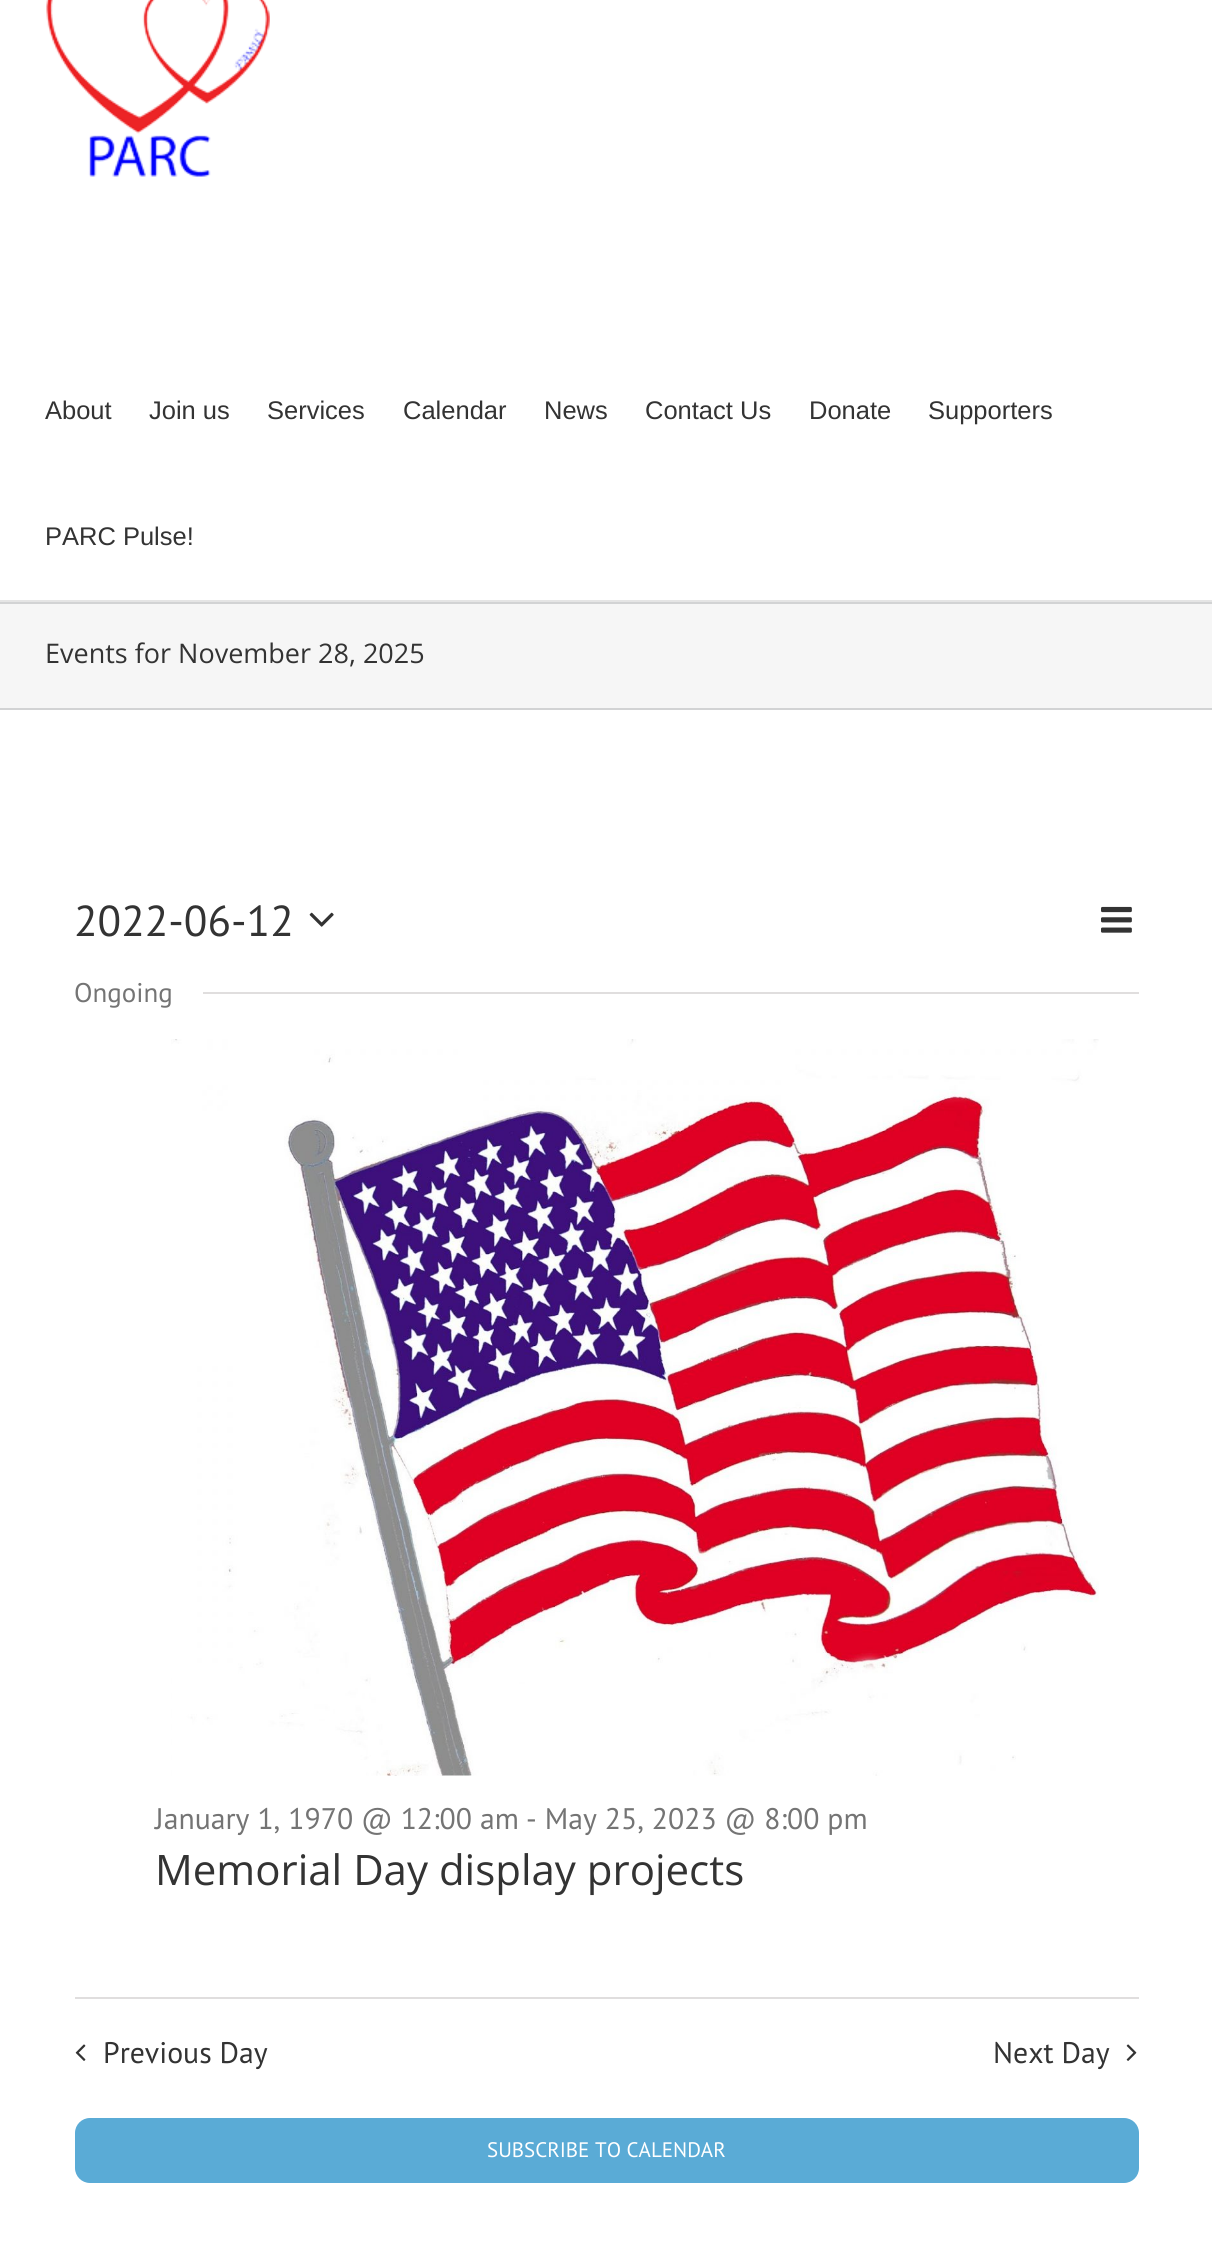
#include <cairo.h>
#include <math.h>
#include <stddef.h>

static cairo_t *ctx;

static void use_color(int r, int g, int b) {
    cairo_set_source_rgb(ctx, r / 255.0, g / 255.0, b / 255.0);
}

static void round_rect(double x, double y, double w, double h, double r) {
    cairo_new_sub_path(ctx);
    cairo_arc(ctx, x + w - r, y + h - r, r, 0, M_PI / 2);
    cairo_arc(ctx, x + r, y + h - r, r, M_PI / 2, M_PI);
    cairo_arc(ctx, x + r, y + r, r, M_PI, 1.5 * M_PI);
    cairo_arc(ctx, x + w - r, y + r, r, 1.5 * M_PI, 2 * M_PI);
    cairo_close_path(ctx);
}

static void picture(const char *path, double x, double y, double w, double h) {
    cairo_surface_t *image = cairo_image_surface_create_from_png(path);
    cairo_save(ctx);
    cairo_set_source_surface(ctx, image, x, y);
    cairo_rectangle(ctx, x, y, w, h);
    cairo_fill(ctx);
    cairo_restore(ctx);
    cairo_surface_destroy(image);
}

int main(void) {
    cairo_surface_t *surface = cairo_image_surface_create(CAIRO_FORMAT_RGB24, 1212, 2267);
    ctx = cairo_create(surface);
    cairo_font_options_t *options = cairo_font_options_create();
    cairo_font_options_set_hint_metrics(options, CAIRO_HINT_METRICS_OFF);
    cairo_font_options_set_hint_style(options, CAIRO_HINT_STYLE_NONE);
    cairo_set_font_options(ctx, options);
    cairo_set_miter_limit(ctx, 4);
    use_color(246, 246, 246);
    cairo_paint(ctx);
    use_color(255, 255, 255);
    cairo_rectangle(ctx, 0, 0, 1212, 600);
    cairo_fill(ctx);
    use_color(229, 229, 229);
    cairo_rectangle(ctx, 0, 600, 1212, 2);
    cairo_fill(ctx);
    picture("img1.png", 46, 0, 224, 177);
    cairo_select_font_face(ctx, "Liberation Sans", CAIRO_FONT_SLANT_NORMAL, CAIRO_FONT_WEIGHT_NORMAL);
    cairo_set_font_size(ctx, 25.5);
    use_color(51, 51, 51);
    cairo_move_to(ctx, 45, 419);
    cairo_show_text(ctx, "About");
    cairo_move_to(ctx, 149, 419);
    cairo_show_text(ctx, "Join us");
    cairo_move_to(ctx, 267, 419);
    cairo_show_text(ctx, "Services");
    cairo_move_to(ctx, 403, 419);
    cairo_show_text(ctx, "Calendar");
    cairo_move_to(ctx, 544, 419);
    cairo_show_text(ctx, "News");
    cairo_move_to(ctx, 645, 419);
    cairo_show_text(ctx, "Contact Us");
    cairo_move_to(ctx, 809, 419);
    cairo_show_text(ctx, "Donate");
    cairo_move_to(ctx, 928, 419);
    cairo_show_text(ctx, "Supporters");
    cairo_move_to(ctx, 45, 545);
    cairo_show_text(ctx, "PARC Pulse!");
    use_color(210, 211, 212);
    cairo_rectangle(ctx, 0, 602, 1212, 2);
    cairo_fill(ctx);
    cairo_rectangle(ctx, 0, 708, 1212, 2);
    cairo_fill(ctx);
    cairo_select_font_face(ctx, "Open Sans", CAIRO_FONT_SLANT_NORMAL, CAIRO_FONT_WEIGHT_NORMAL);
    cairo_set_font_size(ctx, 27);
    use_color(51, 51, 51);
    cairo_move_to(ctx, 45, 663);
    cairo_show_text(ctx, "Events for November 28, 2025");
    use_color(255, 255, 255);
    cairo_rectangle(ctx, 0, 710, 1212, 1557);
    cairo_fill(ctx);
    cairo_select_font_face(ctx, "PT Sans", CAIRO_FONT_SLANT_NORMAL, CAIRO_FONT_WEIGHT_NORMAL);
    cairo_set_font_size(ctx, 43.25);
    use_color(51, 51, 51);
    cairo_move_to(ctx, 74, 936);
    cairo_show_text(ctx, "2022-06-12");
    picture("img2.png", 309, 912, 25, 15);
    picture("img3.png", 1101, 906, 31, 27);
    cairo_set_font_size(ctx, 27);
    use_color(116, 116, 116);
    cairo_move_to(ctx, 74, 1002);
    cairo_show_text(ctx, "Ongoing");
    use_color(224, 222, 222);
    cairo_rectangle(ctx, 203, 992, 936, 2);
    cairo_fill(ctx);
    picture("img4.png", 171, 1039, 928, 737);
    cairo_set_font_size(ctx, 29.75);
    use_color(116, 116, 116);
    cairo_move_to(ctx, 155, 1829);
    cairo_show_text(ctx, "January 1, 1970 @ 12:00 am");
    cairo_move_to(ctx, 526, 1829);
    cairo_show_text(ctx, "- May 25, 2023 @ 8:00 pm");
    cairo_select_font_face(ctx, "Open Sans", CAIRO_FONT_SLANT_NORMAL, CAIRO_FONT_WEIGHT_NORMAL);
    cairo_set_font_size(ctx, 42);
    use_color(51, 51, 51);
    cairo_move_to(ctx, 155, 1885);
    cairo_show_text(ctx, "Memorial Day display projects");
    use_color(224, 222, 222);
    cairo_rectangle(ctx, 75, 1997, 1064, 2);
    cairo_fill(ctx);
    picture("img5.png", 75, 2044, 11, 17);
    cairo_select_font_face(ctx, "PT Sans", CAIRO_FONT_SLANT_NORMAL, CAIRO_FONT_WEIGHT_NORMAL);
    cairo_set_font_size(ctx, 29.75);
    use_color(51, 51, 51);
    cairo_move_to(ctx, 103, 2063);
    cairo_show_text(ctx, "Previous Day");
    cairo_move_to(ctx, 993, 2063);
    cairo_show_text(ctx, "Next Day");
    picture("img6.png", 1126, 2044, 11, 17);
    use_color(90, 171, 214);
    round_rect(75, 2118, 1064, 65, 15);
    cairo_fill(ctx);
    cairo_set_font_size(ctx, 21);
    use_color(255, 255, 255);
    cairo_move_to(ctx, 487, 2157);
    cairo_show_text(ctx, "SUBSCRIBE TO CALENDAR");
    cairo_surface_write_to_png(surface, "result.png");
    cairo_font_options_destroy(options);
    cairo_destroy(ctx);
    cairo_surface_destroy(surface);
    return 0;
}
